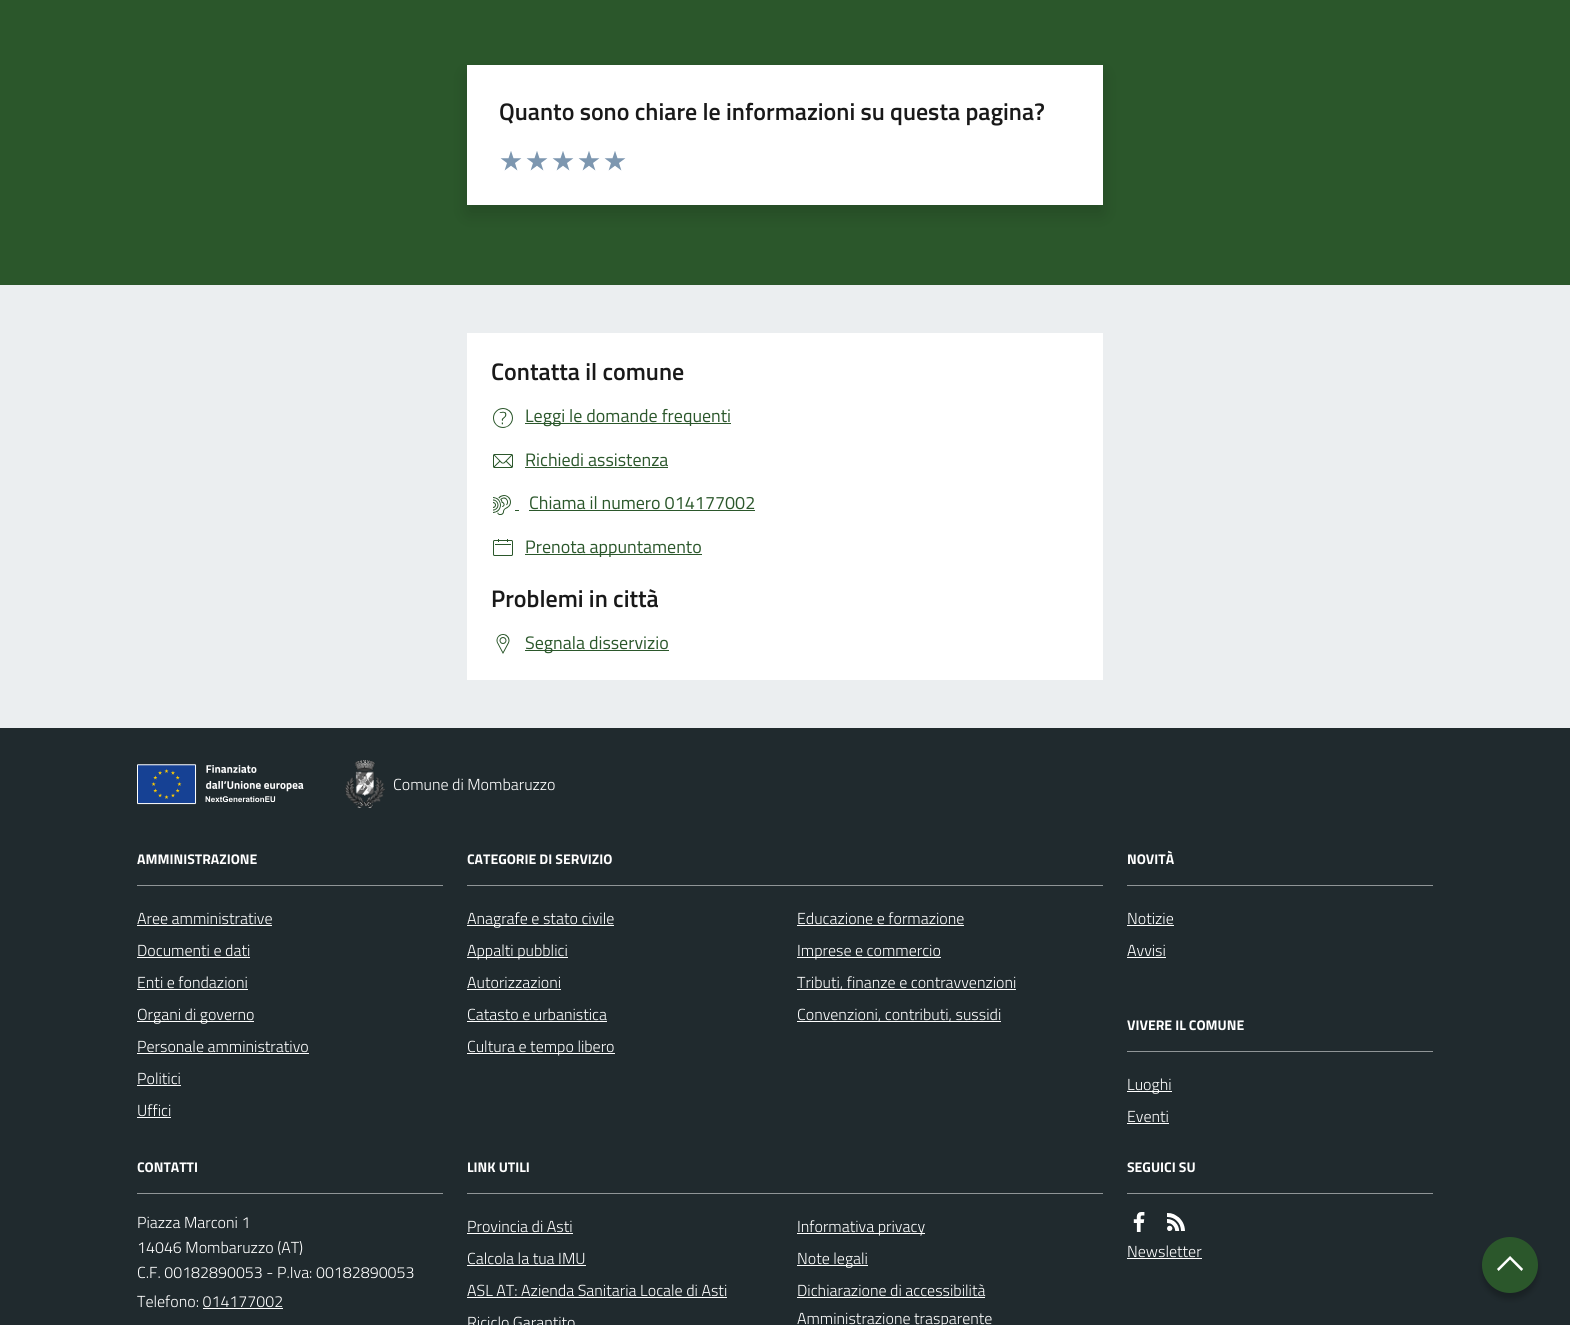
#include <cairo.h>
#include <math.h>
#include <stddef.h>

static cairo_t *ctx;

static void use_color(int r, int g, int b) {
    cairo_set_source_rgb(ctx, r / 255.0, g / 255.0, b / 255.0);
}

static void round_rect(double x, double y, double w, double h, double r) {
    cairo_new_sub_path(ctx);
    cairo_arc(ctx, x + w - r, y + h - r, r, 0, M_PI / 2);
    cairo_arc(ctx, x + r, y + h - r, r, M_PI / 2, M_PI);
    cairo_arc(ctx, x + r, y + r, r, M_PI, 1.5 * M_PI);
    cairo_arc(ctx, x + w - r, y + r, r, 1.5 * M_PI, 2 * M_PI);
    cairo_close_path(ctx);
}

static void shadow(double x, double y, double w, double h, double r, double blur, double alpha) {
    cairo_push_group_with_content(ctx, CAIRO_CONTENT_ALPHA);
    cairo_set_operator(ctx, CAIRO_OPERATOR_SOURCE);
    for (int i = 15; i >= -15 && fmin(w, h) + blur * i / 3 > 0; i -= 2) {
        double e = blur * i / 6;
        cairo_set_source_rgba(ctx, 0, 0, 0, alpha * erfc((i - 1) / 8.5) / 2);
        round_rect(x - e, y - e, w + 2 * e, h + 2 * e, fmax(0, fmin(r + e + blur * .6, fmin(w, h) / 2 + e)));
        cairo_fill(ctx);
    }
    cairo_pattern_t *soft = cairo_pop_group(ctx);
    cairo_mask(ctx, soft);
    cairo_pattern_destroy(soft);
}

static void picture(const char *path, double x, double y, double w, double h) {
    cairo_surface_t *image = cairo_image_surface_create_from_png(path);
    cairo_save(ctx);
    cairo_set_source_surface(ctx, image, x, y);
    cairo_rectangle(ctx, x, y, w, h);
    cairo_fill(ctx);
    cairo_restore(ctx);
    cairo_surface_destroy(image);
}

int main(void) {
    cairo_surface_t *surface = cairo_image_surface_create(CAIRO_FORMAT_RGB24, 1570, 1325);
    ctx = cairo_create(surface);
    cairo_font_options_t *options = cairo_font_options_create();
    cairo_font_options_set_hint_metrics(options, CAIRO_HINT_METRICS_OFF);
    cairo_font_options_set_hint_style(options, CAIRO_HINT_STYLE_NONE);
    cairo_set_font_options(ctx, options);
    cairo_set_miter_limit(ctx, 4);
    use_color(43, 87, 43);
    cairo_paint(ctx);
    use_color(0, 0, 0);
    shadow(467, 74, 636, 140, 0, 9, 0.15);
    use_color(255, 255, 255);
    cairo_rectangle(ctx, 467, 65, 636, 140);
    cairo_fill(ctx);
    cairo_select_font_face(ctx, "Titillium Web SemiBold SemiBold", CAIRO_FONT_SLANT_NORMAL, CAIRO_FONT_WEIGHT_NORMAL);
    cairo_set_font_size(ctx, 24);
    use_color(25, 25, 25);
    cairo_move_to(ctx, 499, 120);
    cairo_show_text(ctx, "Quanto sono chiare le informazioni su questa pagina?");
    picture("img1.png", 500, 151, 22, 20);
    picture("img2.png", 526, 151, 22, 20);
    picture("img2.png", 552, 151, 22, 20);
    picture("img2.png", 578, 151, 22, 20);
    picture("img2.png", 604, 151, 22, 20);
    use_color(235, 238, 240);
    cairo_rectangle(ctx, 0, 285, 1570, 443);
    cairo_fill(ctx);
    use_color(255, 255, 255);
    cairo_rectangle(ctx, 467, 333, 636, 347);
    cairo_fill(ctx);
    use_color(25, 25, 25);
    cairo_move_to(ctx, 491, 380);
    cairo_show_text(ctx, "Contatta il comune");
    picture("img3.png", 493, 408, 20, 20);
    use_color(43, 87, 43);
    cairo_rectangle(ctx, 525, 423, 206, 1);
    cairo_fill(ctx);
    cairo_select_font_face(ctx, "Titillium Web", CAIRO_FONT_SLANT_NORMAL, CAIRO_FONT_WEIGHT_NORMAL);
    cairo_set_font_size(ctx, 18);
    cairo_move_to(ctx, 525, 422);
    cairo_show_text(ctx, "Leggi le domande frequenti");
    picture("img4.png", 493, 454, 20, 14);
    cairo_move_to(ctx, 525, 466);
    cairo_show_text(ctx, "Richiedi assistenza");
    cairo_rectangle(ctx, 525, 467, 143, 1);
    cairo_fill(ctx);
    picture("img5.png", 493, 495, 18, 20);
    cairo_move_to(ctx, 529, 509);
    cairo_show_text(ctx, "Chiama il numero 014177002");
    cairo_rectangle(ctx, 529, 510, 226, 1);
    cairo_fill(ctx);
    cairo_rectangle(ctx, 515, 510, 4, 1);
    cairo_fill(ctx);
    picture("img6.png", 493, 539, 20, 17);
    cairo_rectangle(ctx, 525, 554, 177, 1);
    cairo_fill(ctx);
    cairo_move_to(ctx, 525, 553);
    cairo_show_text(ctx, "Prenota appuntamento");
    cairo_select_font_face(ctx, "Titillium Web SemiBold SemiBold", CAIRO_FONT_SLANT_NORMAL, CAIRO_FONT_WEIGHT_NORMAL);
    cairo_set_font_size(ctx, 24);
    use_color(25, 25, 25);
    cairo_move_to(ctx, 491, 607);
    cairo_show_text(ctx, "Problemi in città");
    picture("img7.png", 496, 634, 14, 20);
    use_color(43, 87, 43);
    cairo_rectangle(ctx, 525, 650, 144, 1);
    cairo_fill(ctx);
    cairo_select_font_face(ctx, "Titillium Web", CAIRO_FONT_SLANT_NORMAL, CAIRO_FONT_WEIGHT_NORMAL);
    cairo_set_font_size(ctx, 18);
    cairo_move_to(ctx, 525, 649);
    cairo_show_text(ctx, "Segnala disservizio");
    use_color(32, 42, 46);
    cairo_rectangle(ctx, 0, 728, 1570, 597);
    cairo_fill(ctx);
    picture("img8.png", 137, 764, 167, 41);
    picture("img9.png", 345, 760, 40, 48);
    cairo_select_font_face(ctx, "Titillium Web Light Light", CAIRO_FONT_SLANT_NORMAL, CAIRO_FONT_WEIGHT_NORMAL);
    cairo_set_font_size(ctx, 16);
    use_color(255, 255, 255);
    cairo_move_to(ctx, 393, 790);
    cairo_show_text(ctx, "Comune di Mombaruzzo");
    use_color(144, 149, 151);
    cairo_rectangle(ctx, 137, 885, 306, 1);
    cairo_fill(ctx);
    cairo_select_font_face(ctx, "Titillium Web", CAIRO_FONT_SLANT_NORMAL, CAIRO_FONT_WEIGHT_BOLD);
    cairo_set_font_size(ctx, 14);
    use_color(255, 255, 255);
    cairo_move_to(ctx, 137, 864);
    cairo_show_text(ctx, "AMMINISTRAZIONE");
    cairo_select_font_face(ctx, "Titillium Web Light Light", CAIRO_FONT_SLANT_NORMAL, CAIRO_FONT_WEIGHT_NORMAL);
    cairo_set_font_size(ctx, 16);
    cairo_move_to(ctx, 137, 924);
    cairo_show_text(ctx, "Aree amministrative");
    cairo_rectangle(ctx, 137, 925, 135, 1);
    cairo_fill(ctx);
    cairo_move_to(ctx, 137, 956);
    cairo_show_text(ctx, "Documenti e dati");
    cairo_rectangle(ctx, 137, 957, 113, 1);
    cairo_fill(ctx);
    cairo_move_to(ctx, 137, 988);
    cairo_show_text(ctx, "Enti e fondazioni");
    cairo_rectangle(ctx, 137, 989, 111, 1);
    cairo_fill(ctx);
    cairo_rectangle(ctx, 137, 1021, 117, 1);
    cairo_fill(ctx);
    cairo_move_to(ctx, 137, 1020);
    cairo_show_text(ctx, "Organi di governo");
    cairo_move_to(ctx, 137, 1052);
    cairo_show_text(ctx, "Personale amministrativo");
    cairo_rectangle(ctx, 137, 1053, 172, 1);
    cairo_fill(ctx);
    cairo_move_to(ctx, 137, 1084);
    cairo_show_text(ctx, "Politici");
    cairo_rectangle(ctx, 137, 1085, 44, 1);
    cairo_fill(ctx);
    cairo_move_to(ctx, 137, 1116);
    cairo_show_text(ctx, "Uffici");
    cairo_rectangle(ctx, 137, 1117, 34, 1);
    cairo_fill(ctx);
    use_color(144, 149, 151);
    cairo_rectangle(ctx, 467, 885, 636, 1);
    cairo_fill(ctx);
    cairo_select_font_face(ctx, "Titillium Web", CAIRO_FONT_SLANT_NORMAL, CAIRO_FONT_WEIGHT_BOLD);
    cairo_set_font_size(ctx, 14);
    use_color(255, 255, 255);
    cairo_move_to(ctx, 467, 864);
    cairo_show_text(ctx, "CATEGORIE DI SERVIZIO");
    cairo_rectangle(ctx, 467, 925, 147, 1);
    cairo_fill(ctx);
    cairo_select_font_face(ctx, "Titillium Web Light Light", CAIRO_FONT_SLANT_NORMAL, CAIRO_FONT_WEIGHT_NORMAL);
    cairo_set_font_size(ctx, 16);
    cairo_move_to(ctx, 467, 924);
    cairo_show_text(ctx, "Anagrafe e stato civile");
    cairo_rectangle(ctx, 467, 957, 101, 1);
    cairo_fill(ctx);
    cairo_move_to(ctx, 467, 956);
    cairo_show_text(ctx, "Appalti pubblici");
    cairo_move_to(ctx, 467, 988);
    cairo_show_text(ctx, "Autorizzazioni");
    cairo_rectangle(ctx, 467, 989, 94, 1);
    cairo_fill(ctx);
    cairo_move_to(ctx, 467, 1020);
    cairo_show_text(ctx, "Catasto e urbanistica");
    cairo_rectangle(ctx, 467, 1021, 140, 1);
    cairo_fill(ctx);
    cairo_rectangle(ctx, 467, 1053, 148, 1);
    cairo_fill(ctx);
    cairo_move_to(ctx, 467, 1052);
    cairo_show_text(ctx, "Cultura e tempo libero");
    cairo_move_to(ctx, 797, 924);
    cairo_show_text(ctx, "Educazione e formazione");
    cairo_rectangle(ctx, 797, 925, 167, 1);
    cairo_fill(ctx);
    cairo_rectangle(ctx, 797, 957, 144, 1);
    cairo_fill(ctx);
    cairo_move_to(ctx, 797, 956);
    cairo_show_text(ctx, "Imprese e commercio");
    cairo_rectangle(ctx, 797, 989, 219, 1);
    cairo_fill(ctx);
    cairo_move_to(ctx, 797, 988);
    cairo_show_text(ctx, "Tributi, finanze e contravvenzioni");
    cairo_rectangle(ctx, 797, 1021, 204, 1);
    cairo_fill(ctx);
    cairo_move_to(ctx, 797, 1020);
    cairo_show_text(ctx, "Convenzioni, contributi, sussidi");
    use_color(144, 149, 151);
    cairo_rectangle(ctx, 1127, 885, 306, 1);
    cairo_fill(ctx);
    cairo_select_font_face(ctx, "Titillium Web", CAIRO_FONT_SLANT_NORMAL, CAIRO_FONT_WEIGHT_BOLD);
    cairo_set_font_size(ctx, 14);
    use_color(255, 255, 255);
    cairo_move_to(ctx, 1127, 864);
    cairo_show_text(ctx, "NOVITÀ");
    cairo_select_font_face(ctx, "Titillium Web Light Light", CAIRO_FONT_SLANT_NORMAL, CAIRO_FONT_WEIGHT_NORMAL);
    cairo_set_font_size(ctx, 16);
    cairo_move_to(ctx, 1127, 924);
    cairo_show_text(ctx, "Notizie");
    cairo_rectangle(ctx, 1127, 925, 47, 1);
    cairo_fill(ctx);
    cairo_move_to(ctx, 1127, 956);
    cairo_show_text(ctx, "Avvisi");
    cairo_rectangle(ctx, 1127, 957, 39, 1);
    cairo_fill(ctx);
    use_color(144, 149, 151);
    cairo_rectangle(ctx, 1127, 1051, 306, 1);
    cairo_fill(ctx);
    cairo_select_font_face(ctx, "Titillium Web", CAIRO_FONT_SLANT_NORMAL, CAIRO_FONT_WEIGHT_BOLD);
    cairo_set_font_size(ctx, 14);
    use_color(255, 255, 255);
    cairo_move_to(ctx, 1127, 1030);
    cairo_show_text(ctx, "VIVERE IL COMUNE");
    cairo_rectangle(ctx, 1127, 1091, 45, 1);
    cairo_fill(ctx);
    cairo_select_font_face(ctx, "Titillium Web Light Light", CAIRO_FONT_SLANT_NORMAL, CAIRO_FONT_WEIGHT_NORMAL);
    cairo_set_font_size(ctx, 16);
    cairo_move_to(ctx, 1127, 1090);
    cairo_show_text(ctx, "Luoghi");
    cairo_move_to(ctx, 1127, 1122);
    cairo_show_text(ctx, "Eventi");
    cairo_rectangle(ctx, 1127, 1123, 42, 1);
    cairo_fill(ctx);
    use_color(144, 149, 151);
    cairo_rectangle(ctx, 137, 1193, 306, 1);
    cairo_fill(ctx);
    cairo_select_font_face(ctx, "Titillium Web", CAIRO_FONT_SLANT_NORMAL, CAIRO_FONT_WEIGHT_BOLD);
    cairo_set_font_size(ctx, 14);
    use_color(255, 255, 255);
    cairo_move_to(ctx, 137, 1172);
    cairo_show_text(ctx, "CONTATTI");
    cairo_select_font_face(ctx, "Titillium Web Light Light", CAIRO_FONT_SLANT_NORMAL, CAIRO_FONT_WEIGHT_NORMAL);
    cairo_set_font_size(ctx, 16);
    cairo_move_to(ctx, 137, 1228);
    cairo_show_text(ctx, "Piazza Marconi 1");
    cairo_move_to(ctx, 137, 1253);
    cairo_show_text(ctx, "14046 Mombaruzzo (AT)");
    cairo_move_to(ctx, 137, 1278);
    cairo_show_text(ctx, "C.F. 00182890053 - P.Iva: 00182890053");
    cairo_move_to(ctx, 137, 1307);
    cairo_show_text(ctx, "Telefono: 014177002");
    cairo_rectangle(ctx, 203, 1308, 80, 1);
    cairo_fill(ctx);
    use_color(144, 149, 151);
    cairo_rectangle(ctx, 467, 1193, 636, 1);
    cairo_fill(ctx);
    cairo_select_font_face(ctx, "Titillium Web", CAIRO_FONT_SLANT_NORMAL, CAIRO_FONT_WEIGHT_BOLD);
    cairo_set_font_size(ctx, 14);
    use_color(255, 255, 255);
    cairo_move_to(ctx, 467, 1172);
    cairo_show_text(ctx, "LINK UTILI");
    cairo_select_font_face(ctx, "Titillium Web Light Light", CAIRO_FONT_SLANT_NORMAL, CAIRO_FONT_WEIGHT_NORMAL);
    cairo_set_font_size(ctx, 16);
    cairo_move_to(ctx, 467, 1232);
    cairo_show_text(ctx, "Provincia di Asti");
    cairo_rectangle(ctx, 467, 1233, 106, 1);
    cairo_fill(ctx);
    cairo_move_to(ctx, 467, 1264);
    cairo_show_text(ctx, "Calcola la tua IMU");
    cairo_rectangle(ctx, 467, 1265, 119, 1);
    cairo_fill(ctx);
    cairo_move_to(ctx, 467, 1296);
    cairo_show_text(ctx, "ASL AT: Azienda Sanitaria Locale di Asti");
    cairo_rectangle(ctx, 467, 1297, 260, 1);
    cairo_fill(ctx);
    cairo_move_to(ctx, 467, 1328);
    cairo_show_text(ctx, "Riciclo Garantito");
    cairo_rectangle(ctx, 797, 1233, 128, 1);
    cairo_fill(ctx);
    cairo_move_to(ctx, 797, 1232);
    cairo_show_text(ctx, "Informativa privacy");
    cairo_rectangle(ctx, 797, 1265, 71, 1);
    cairo_fill(ctx);
    cairo_move_to(ctx, 797, 1264);
    cairo_show_text(ctx, "Note legali");
    cairo_move_to(ctx, 797, 1296);
    cairo_show_text(ctx, "Dichiarazione di accessibilità");
    cairo_rectangle(ctx, 797, 1297, 188, 1);
    cairo_fill(ctx);
    cairo_move_to(ctx, 797, 1324);
    cairo_show_text(ctx, "Amministrazione trasparente");
    use_color(144, 149, 151);
    cairo_rectangle(ctx, 1127, 1193, 306, 1);
    cairo_fill(ctx);
    cairo_select_font_face(ctx, "Titillium Web", CAIRO_FONT_SLANT_NORMAL, CAIRO_FONT_WEIGHT_BOLD);
    cairo_set_font_size(ctx, 14);
    use_color(255, 255, 255);
    cairo_move_to(ctx, 1127, 1172);
    cairo_show_text(ctx, "SEGUICI SU");
    picture("img10.png", 1133, 1212, 12, 20);
    picture("img11.png", 1167, 1213, 18, 18);
    cairo_select_font_face(ctx, "Titillium Web Light Light", CAIRO_FONT_SLANT_NORMAL, CAIRO_FONT_WEIGHT_NORMAL);
    cairo_set_font_size(ctx, 16);
    cairo_move_to(ctx, 1127, 1257);
    cairo_show_text(ctx, "Newsletter");
    cairo_rectangle(ctx, 1127, 1258, 75, 1);
    cairo_fill(ctx);
    use_color(0, 0, 0);
    shadow(1482, 1243, 56, 56, 28, 3, 0.23);
    use_color(43, 87, 43);
    cairo_arc(ctx, 1510, 1265, 28, 0, 2 * M_PI);
    cairo_fill(ctx);
    picture("img12.png", 1497, 1256, 26, 15);
    cairo_surface_write_to_png(surface, "result.png");
    cairo_font_options_destroy(options);
    cairo_destroy(ctx);
    cairo_surface_destroy(surface);
    return 0;
}
